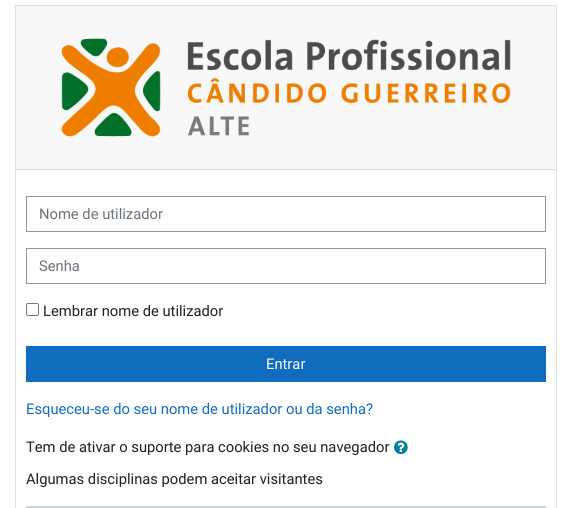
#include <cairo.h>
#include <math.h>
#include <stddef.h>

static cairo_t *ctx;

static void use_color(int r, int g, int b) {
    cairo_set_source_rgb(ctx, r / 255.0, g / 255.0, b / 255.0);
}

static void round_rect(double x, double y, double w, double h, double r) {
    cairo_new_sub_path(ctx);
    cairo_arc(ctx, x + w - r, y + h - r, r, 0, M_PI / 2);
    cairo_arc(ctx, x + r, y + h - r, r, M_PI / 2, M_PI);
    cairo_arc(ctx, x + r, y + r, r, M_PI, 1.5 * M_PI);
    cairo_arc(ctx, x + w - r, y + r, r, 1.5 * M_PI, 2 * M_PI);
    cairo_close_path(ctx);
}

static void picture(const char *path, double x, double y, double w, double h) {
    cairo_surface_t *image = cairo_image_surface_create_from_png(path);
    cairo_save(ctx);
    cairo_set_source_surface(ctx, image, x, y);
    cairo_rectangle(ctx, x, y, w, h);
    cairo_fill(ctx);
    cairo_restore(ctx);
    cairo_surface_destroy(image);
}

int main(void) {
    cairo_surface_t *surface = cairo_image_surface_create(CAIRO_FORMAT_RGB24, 572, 508);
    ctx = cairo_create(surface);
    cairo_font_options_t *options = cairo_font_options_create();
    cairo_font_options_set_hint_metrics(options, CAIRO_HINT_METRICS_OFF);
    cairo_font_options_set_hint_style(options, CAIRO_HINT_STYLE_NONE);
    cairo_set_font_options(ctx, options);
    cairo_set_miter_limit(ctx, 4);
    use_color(255, 255, 255);
    cairo_paint(ctx);
    cairo_rectangle(ctx, 15.5, 5.5, 541, 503);
    use_color(223, 223, 223);
    cairo_set_line_width(ctx, 1);
    cairo_stroke(ctx);
    use_color(248, 248, 248);
    cairo_rectangle(ctx, 16, 6, 540, 163);
    cairo_fill(ctx);
    use_color(217, 217, 217);
    cairo_rectangle(ctx, 16, 169, 540, 1);
    cairo_fill(ctx);
    picture("img1.png", 61, 38, 450, 99);
    cairo_rectangle(ctx, 26.5, 196.5, 519, 35);
    use_color(143, 149, 158);
    cairo_stroke(ctx);
    cairo_select_font_face(ctx, "Roboto", CAIRO_FONT_SLANT_NORMAL, CAIRO_FONT_WEIGHT_NORMAL);
    cairo_set_font_size(ctx, 14.75);
    use_color(106, 115, 123);
    cairo_move_to(ctx, 39, 219);
    cairo_show_text(ctx, "Nome de utilizador");
    cairo_rectangle(ctx, 26.5, 248.5, 519, 35);
    use_color(143, 149, 158);
    cairo_stroke(ctx);
    use_color(106, 115, 123);
    cairo_move_to(ctx, 39, 271);
    cairo_show_text(ctx, "Senha");
    round_rect(26.5, 303.5, 12, 12, 1.5);
    use_color(118, 118, 118);
    cairo_stroke(ctx);
    use_color(29, 33, 37);
    cairo_move_to(ctx, 43, 316);
    cairo_show_text(ctx, "Lembrar nome de utilizador");
    use_color(15, 108, 191);
    cairo_rectangle(ctx, 26, 346, 520, 36);
    cairo_fill(ctx);
    use_color(255, 255, 255);
    cairo_move_to(ctx, 266, 369);
    cairo_show_text(ctx, "Entrar");
    use_color(15, 108, 191);
    cairo_move_to(ctx, 26, 414);
    cairo_show_text(ctx, "Esqueceu-se do seu nome de utilizador ou da senha?");
    use_color(29, 33, 37);
    cairo_move_to(ctx, 26, 452);
    cairo_show_text(ctx, "Tem de ativar o suporte para cookies no seu navegador");
    picture("img2.png", 394, 440, 14, 15);
    cairo_move_to(ctx, 26, 484);
    cairo_show_text(ctx, "Algumas disciplinas podem aceitar visitantes");
    use_color(206, 212, 218);
    cairo_rectangle(ctx, 26, 506, 520, 2);
    cairo_fill(ctx);
    cairo_surface_write_to_png(surface, "result.png");
    cairo_font_options_destroy(options);
    cairo_destroy(ctx);
    cairo_surface_destroy(surface);
    return 0;
}
